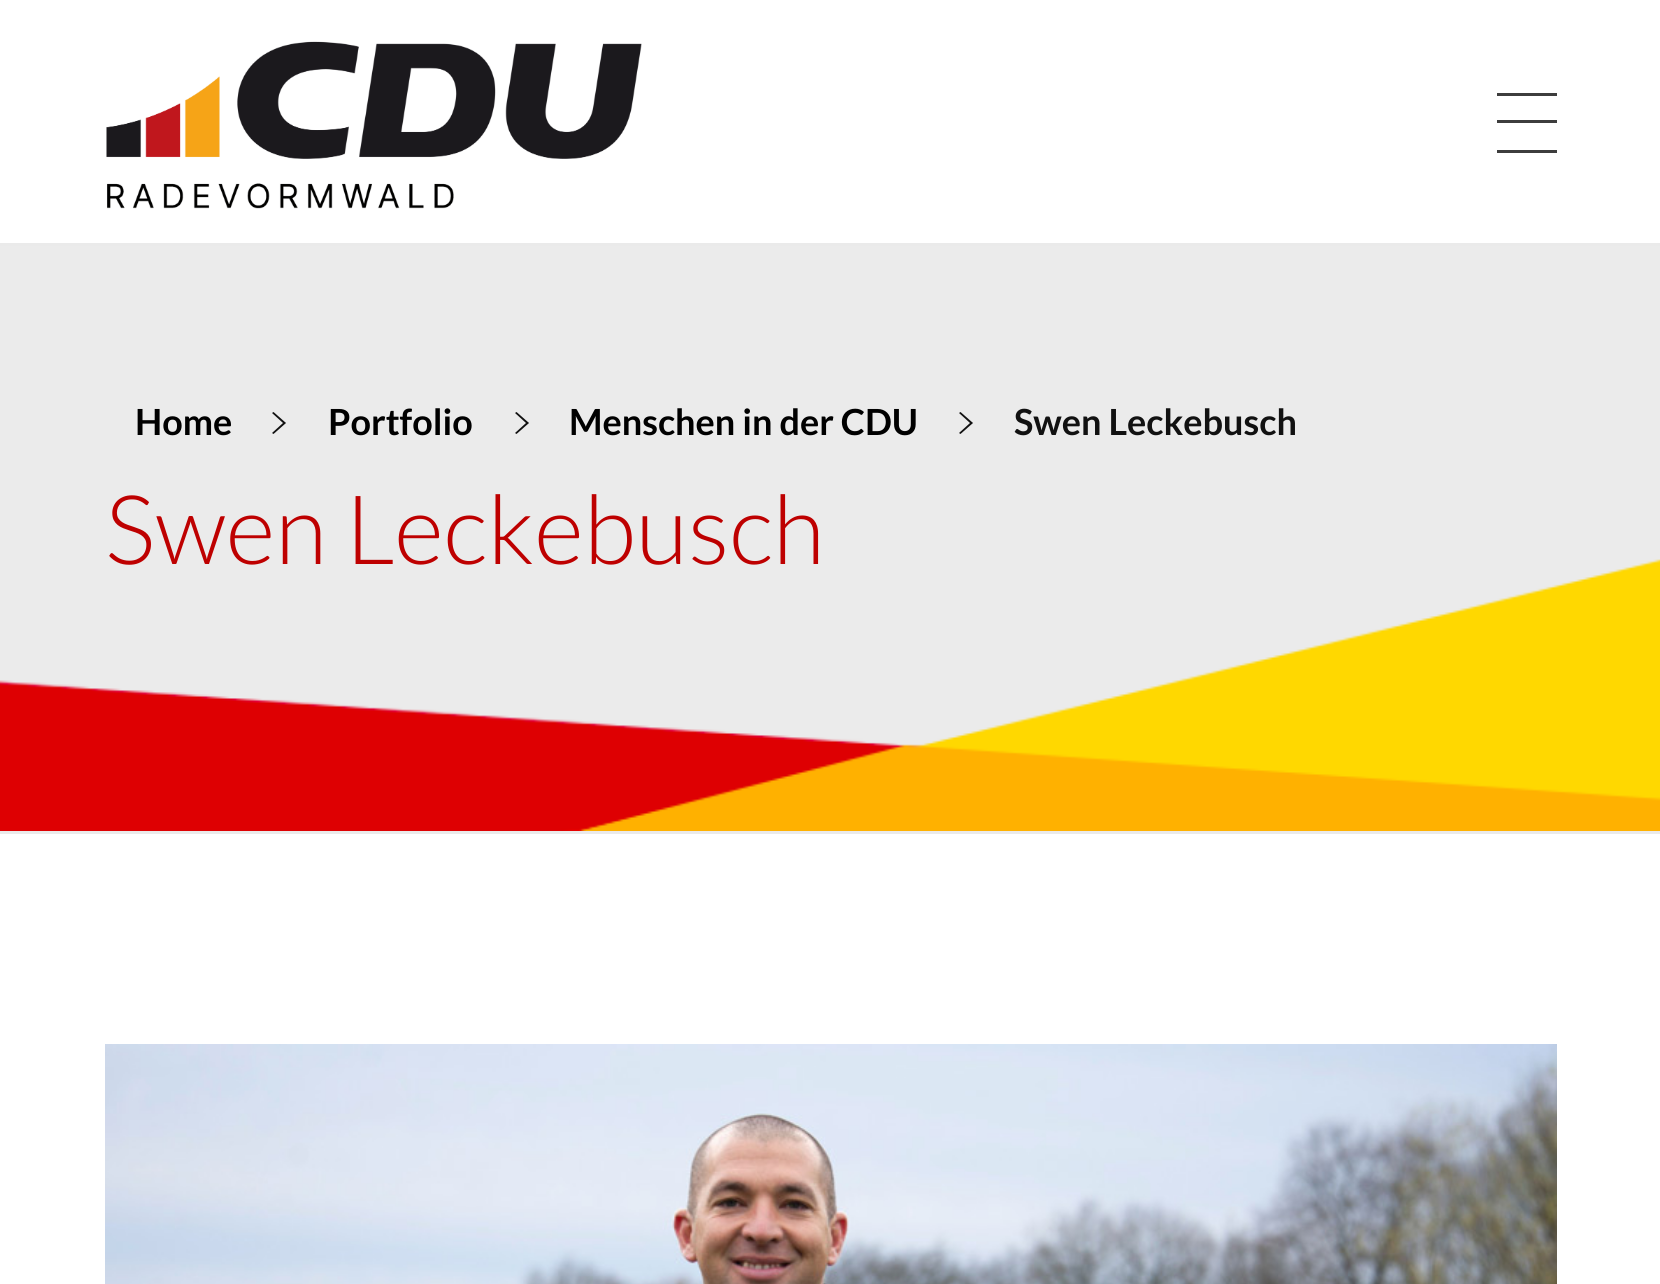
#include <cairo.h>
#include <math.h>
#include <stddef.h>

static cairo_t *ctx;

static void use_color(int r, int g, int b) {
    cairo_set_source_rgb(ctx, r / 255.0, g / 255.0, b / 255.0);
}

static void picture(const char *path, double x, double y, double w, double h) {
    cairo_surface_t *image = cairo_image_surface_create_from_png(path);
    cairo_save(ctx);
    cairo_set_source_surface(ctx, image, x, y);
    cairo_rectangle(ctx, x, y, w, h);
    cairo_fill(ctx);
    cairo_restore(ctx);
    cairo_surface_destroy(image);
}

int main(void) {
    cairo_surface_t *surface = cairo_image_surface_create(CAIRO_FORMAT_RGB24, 1660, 1284);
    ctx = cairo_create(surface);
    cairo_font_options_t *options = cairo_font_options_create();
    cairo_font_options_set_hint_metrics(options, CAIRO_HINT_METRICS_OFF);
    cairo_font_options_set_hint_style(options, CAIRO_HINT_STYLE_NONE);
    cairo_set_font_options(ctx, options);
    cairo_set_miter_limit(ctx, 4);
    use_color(255, 255, 255);
    cairo_paint(ctx);
    use_color(234, 234, 234);
    cairo_rectangle(ctx, 0, 243, 1660, 3);
    cairo_fill(ctx);
    picture("img1.png", 106, 41, 536, 168);
    use_color(61, 61, 61);
    cairo_rectangle(ctx, 1497, 93, 60, 3);
    cairo_fill(ctx);
    cairo_rectangle(ctx, 1497, 120, 60, 3);
    cairo_fill(ctx);
    cairo_rectangle(ctx, 1497, 150, 60, 3);
    cairo_fill(ctx);
    use_color(234, 234, 234);
    cairo_rectangle(ctx, 0, 831, 1660, 3);
    cairo_fill(ctx);
    picture("img2.png", 0, 246, 1660, 585);
    cairo_select_font_face(ctx, "Lato", CAIRO_FONT_SLANT_NORMAL, CAIRO_FONT_WEIGHT_BOLD);
    cairo_set_font_size(ctx, 36);
    use_color(0, 0, 0);
    cairo_move_to(ctx, 135, 435);
    cairo_show_text(ctx, "Home");
    use_color(17, 17, 17);
    cairo_new_path(ctx);
    cairo_move_to(ctx, 272, 413);
    cairo_line_to(ctx, 283, 423);
    cairo_line_to(ctx, 272, 433);
    cairo_line_to(ctx, 273.5, 434);
    cairo_line_to(ctx, 286, 423);
    cairo_line_to(ctx, 273.5, 412);
    cairo_close_path(ctx);
    cairo_fill(ctx);
    use_color(0, 0, 0);
    cairo_move_to(ctx, 328, 435);
    cairo_show_text(ctx, "Portfolio");
    use_color(17, 17, 17);
    cairo_new_path(ctx);
    cairo_move_to(ctx, 515, 413);
    cairo_line_to(ctx, 526, 423);
    cairo_line_to(ctx, 515, 433);
    cairo_line_to(ctx, 516.5, 434);
    cairo_line_to(ctx, 529, 423);
    cairo_line_to(ctx, 516.5, 412);
    cairo_close_path(ctx);
    cairo_fill(ctx);
    use_color(0, 0, 0);
    cairo_move_to(ctx, 569, 435);
    cairo_show_text(ctx, "Menschen in der CDU");
    use_color(17, 17, 17);
    cairo_new_path(ctx);
    cairo_move_to(ctx, 959, 413);
    cairo_line_to(ctx, 970, 423);
    cairo_line_to(ctx, 959, 433);
    cairo_line_to(ctx, 960.5, 434);
    cairo_line_to(ctx, 973, 423);
    cairo_line_to(ctx, 960.5, 412);
    cairo_close_path(ctx);
    cairo_fill(ctx);
    cairo_move_to(ctx, 1014, 435);
    cairo_show_text(ctx, "Swen Leckebusch");
    cairo_select_font_face(ctx, "Lato Light", CAIRO_FONT_SLANT_NORMAL, CAIRO_FONT_WEIGHT_NORMAL);
    cairo_set_font_size(ctx, 96);
    use_color(190, 0, 0);
    cairo_move_to(ctx, 105, 564);
    cairo_show_text(ctx, "Swen Leckebusch");
    picture("img3.png", 105, 1044, 1452, 240);
    cairo_surface_write_to_png(surface, "result.png");
    cairo_font_options_destroy(options);
    cairo_destroy(ctx);
    cairo_surface_destroy(surface);
    return 0;
}
